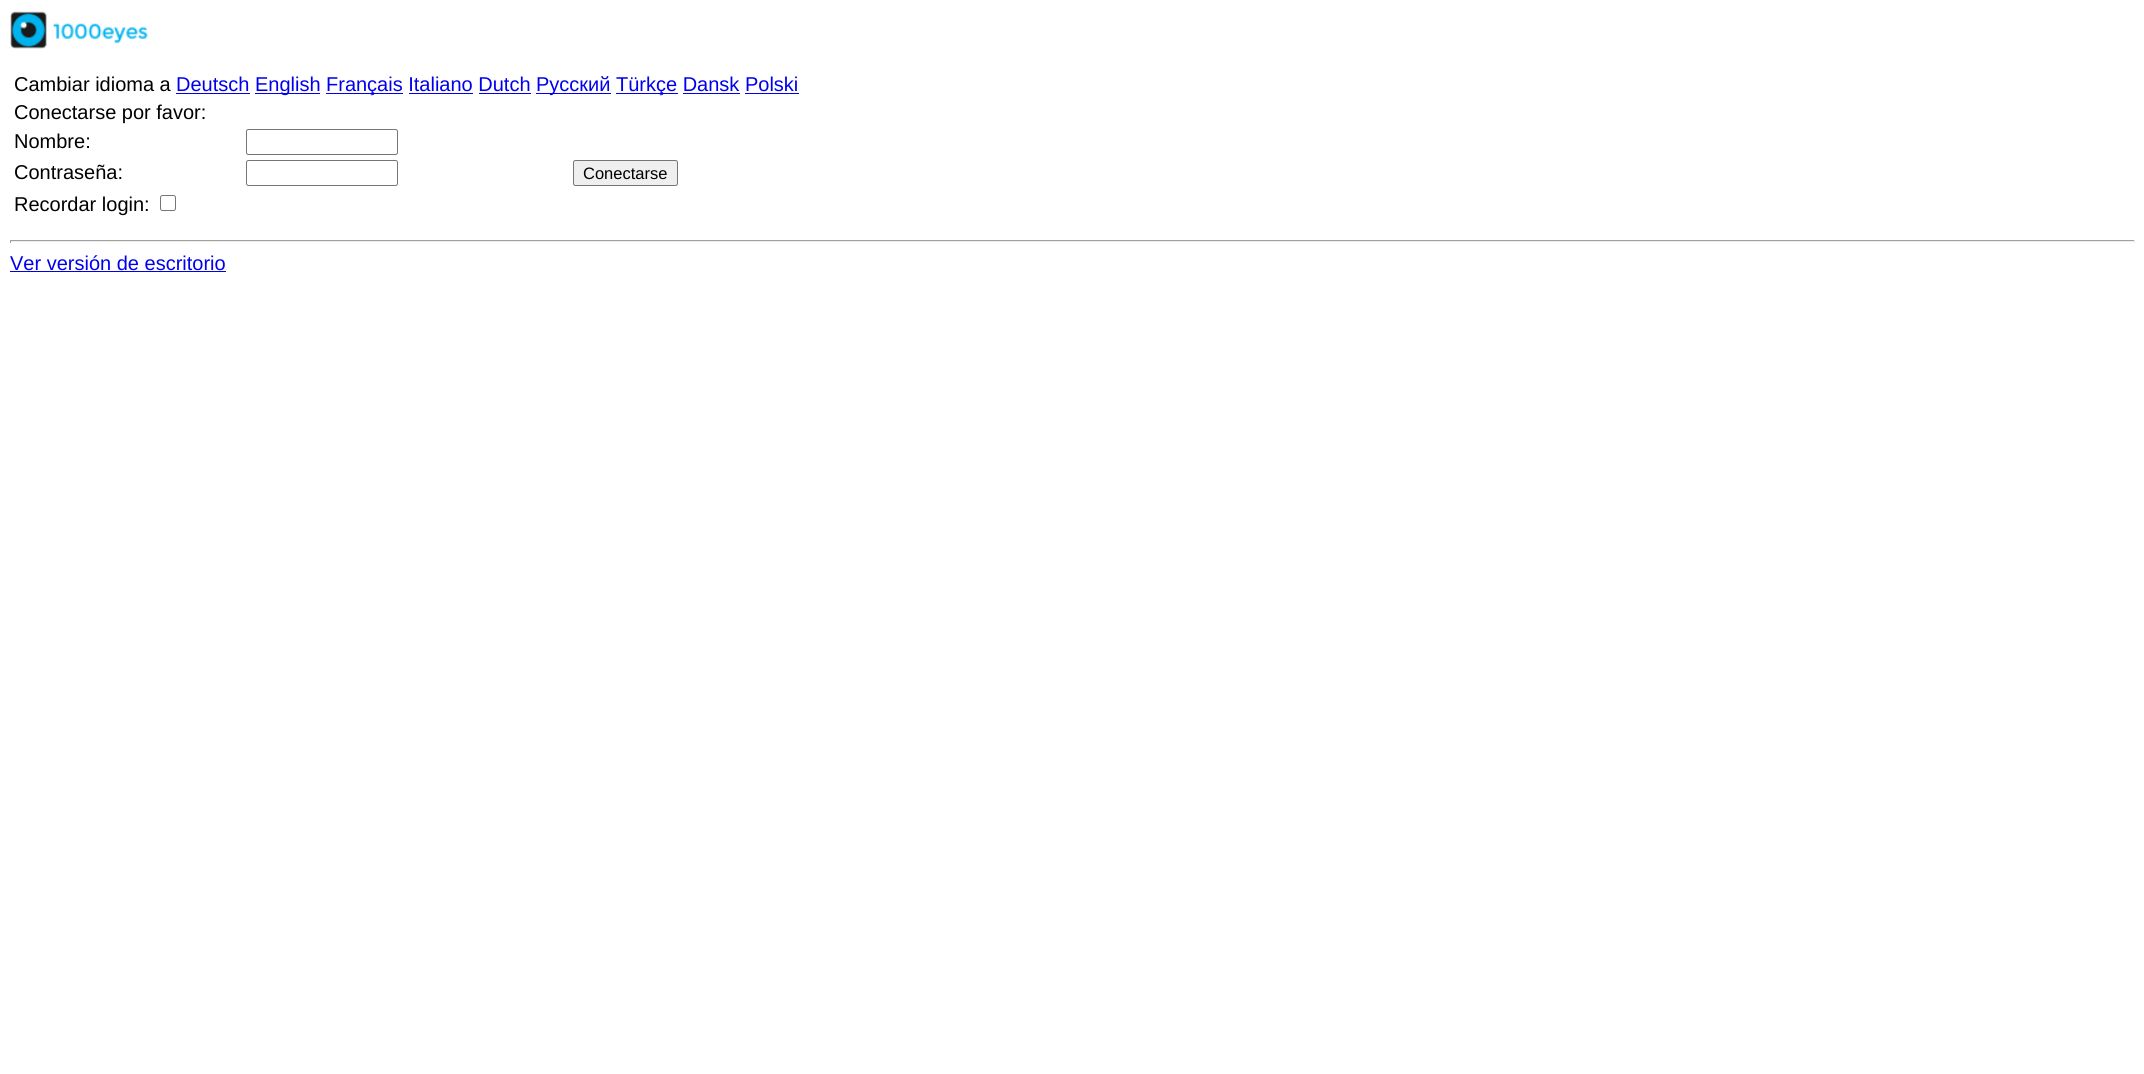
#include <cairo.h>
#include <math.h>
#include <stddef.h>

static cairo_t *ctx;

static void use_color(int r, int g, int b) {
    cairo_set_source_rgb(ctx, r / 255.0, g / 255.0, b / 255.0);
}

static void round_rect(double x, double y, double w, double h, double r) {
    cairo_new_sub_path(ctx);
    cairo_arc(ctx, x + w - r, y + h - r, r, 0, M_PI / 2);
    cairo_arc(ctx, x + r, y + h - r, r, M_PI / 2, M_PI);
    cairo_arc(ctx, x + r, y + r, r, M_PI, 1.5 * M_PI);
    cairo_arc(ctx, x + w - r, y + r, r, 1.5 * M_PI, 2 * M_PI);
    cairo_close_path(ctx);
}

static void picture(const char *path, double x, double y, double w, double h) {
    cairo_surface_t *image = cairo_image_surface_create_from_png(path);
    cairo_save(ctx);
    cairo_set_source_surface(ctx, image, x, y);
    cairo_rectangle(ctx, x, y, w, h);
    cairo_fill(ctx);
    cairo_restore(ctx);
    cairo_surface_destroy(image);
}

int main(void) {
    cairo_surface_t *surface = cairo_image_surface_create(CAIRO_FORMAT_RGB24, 2144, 1074);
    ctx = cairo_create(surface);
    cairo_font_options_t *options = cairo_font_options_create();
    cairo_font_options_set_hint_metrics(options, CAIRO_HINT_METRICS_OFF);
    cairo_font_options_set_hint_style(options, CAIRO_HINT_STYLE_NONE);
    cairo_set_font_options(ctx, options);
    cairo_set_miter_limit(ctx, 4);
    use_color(255, 255, 255);
    cairo_paint(ctx);
    picture("img1.png", 10, 11, 138, 38);
    cairo_select_font_face(ctx, "Liberation Sans", CAIRO_FONT_SLANT_NORMAL, CAIRO_FONT_WEIGHT_NORMAL);
    cairo_set_font_size(ctx, 20);
    use_color(0, 0, 0);
    cairo_move_to(ctx, 14, 91);
    cairo_show_text(ctx, "Cambiar idioma a");
    use_color(0, 0, 238);
    cairo_move_to(ctx, 176, 91);
    cairo_show_text(ctx, "Deutsch");
    cairo_rectangle(ctx, 176, 93, 74, 1);
    cairo_fill(ctx);
    cairo_rectangle(ctx, 255, 93, 65, 1);
    cairo_fill(ctx);
    cairo_move_to(ctx, 255, 91);
    cairo_show_text(ctx, "English");
    cairo_rectangle(ctx, 326, 93, 77, 1);
    cairo_fill(ctx);
    cairo_move_to(ctx, 326, 91);
    cairo_show_text(ctx, "Français Italiano Dutch");
    cairo_rectangle(ctx, 536, 93, 75, 1);
    cairo_fill(ctx);
    cairo_move_to(ctx, 536, 91);
    cairo_show_text(ctx, "Русский");
    cairo_rectangle(ctx, 616, 93, 62, 1);
    cairo_fill(ctx);
    cairo_move_to(ctx, 616, 91);
    cairo_show_text(ctx, "Türkçe Dansk Polski");
    cairo_rectangle(ctx, 409, 93, 64, 1);
    cairo_fill(ctx);
    cairo_rectangle(ctx, 479, 93, 52, 1);
    cairo_fill(ctx);
    cairo_rectangle(ctx, 683, 93, 57, 1);
    cairo_fill(ctx);
    cairo_rectangle(ctx, 745, 93, 54, 1);
    cairo_fill(ctx);
    use_color(0, 0, 0);
    cairo_move_to(ctx, 14, 119);
    cairo_show_text(ctx, "Conectarse por favor:");
    cairo_move_to(ctx, 14, 148);
    cairo_show_text(ctx, "Nombre:");
    round_rect(246.5, 129.5, 151, 25, 2);
    use_color(118, 118, 118);
    cairo_set_line_width(ctx, 1);
    cairo_stroke(ctx);
    use_color(0, 0, 0);
    cairo_move_to(ctx, 14, 179);
    cairo_show_text(ctx, "Contraseña:");
    round_rect(246.5, 160.5, 151, 25, 2);
    use_color(118, 118, 118);
    cairo_stroke(ctx);
    use_color(239, 239, 239);
    round_rect(573.5, 160.5, 104, 25, 2);
    cairo_fill_preserve(ctx);
    use_color(118, 118, 118);
    cairo_stroke(ctx);
    cairo_set_font_size(ctx, 16.5);
    use_color(0, 0, 0);
    cairo_move_to(ctx, 583, 179);
    cairo_show_text(ctx, "Conectarse");
    cairo_set_font_size(ctx, 20);
    cairo_move_to(ctx, 14, 211);
    cairo_show_text(ctx, "Recordar login:");
    round_rect(160.5, 195.5, 15, 15, 2);
    use_color(118, 118, 118);
    cairo_stroke(ctx);
    use_color(159, 159, 159);
    cairo_rectangle(ctx, 10, 240, 2125, 1);
    cairo_fill(ctx);
    use_color(238, 238, 238);
    cairo_rectangle(ctx, 2134, 240, 1, 3);
    cairo_fill(ctx);
    cairo_rectangle(ctx, 10, 241, 2125, 1);
    cairo_fill(ctx);
    use_color(159, 159, 159);
    cairo_rectangle(ctx, 10, 240, 1, 3);
    cairo_fill(ctx);
    use_color(0, 0, 238);
    cairo_move_to(ctx, 10, 270);
    cairo_show_text(ctx, "Ver versión de escritorio");
    cairo_rectangle(ctx, 10, 271, 216, 1);
    cairo_fill(ctx);
    cairo_surface_write_to_png(surface, "result.png");
    cairo_font_options_destroy(options);
    cairo_destroy(ctx);
    cairo_surface_destroy(surface);
    return 0;
}
